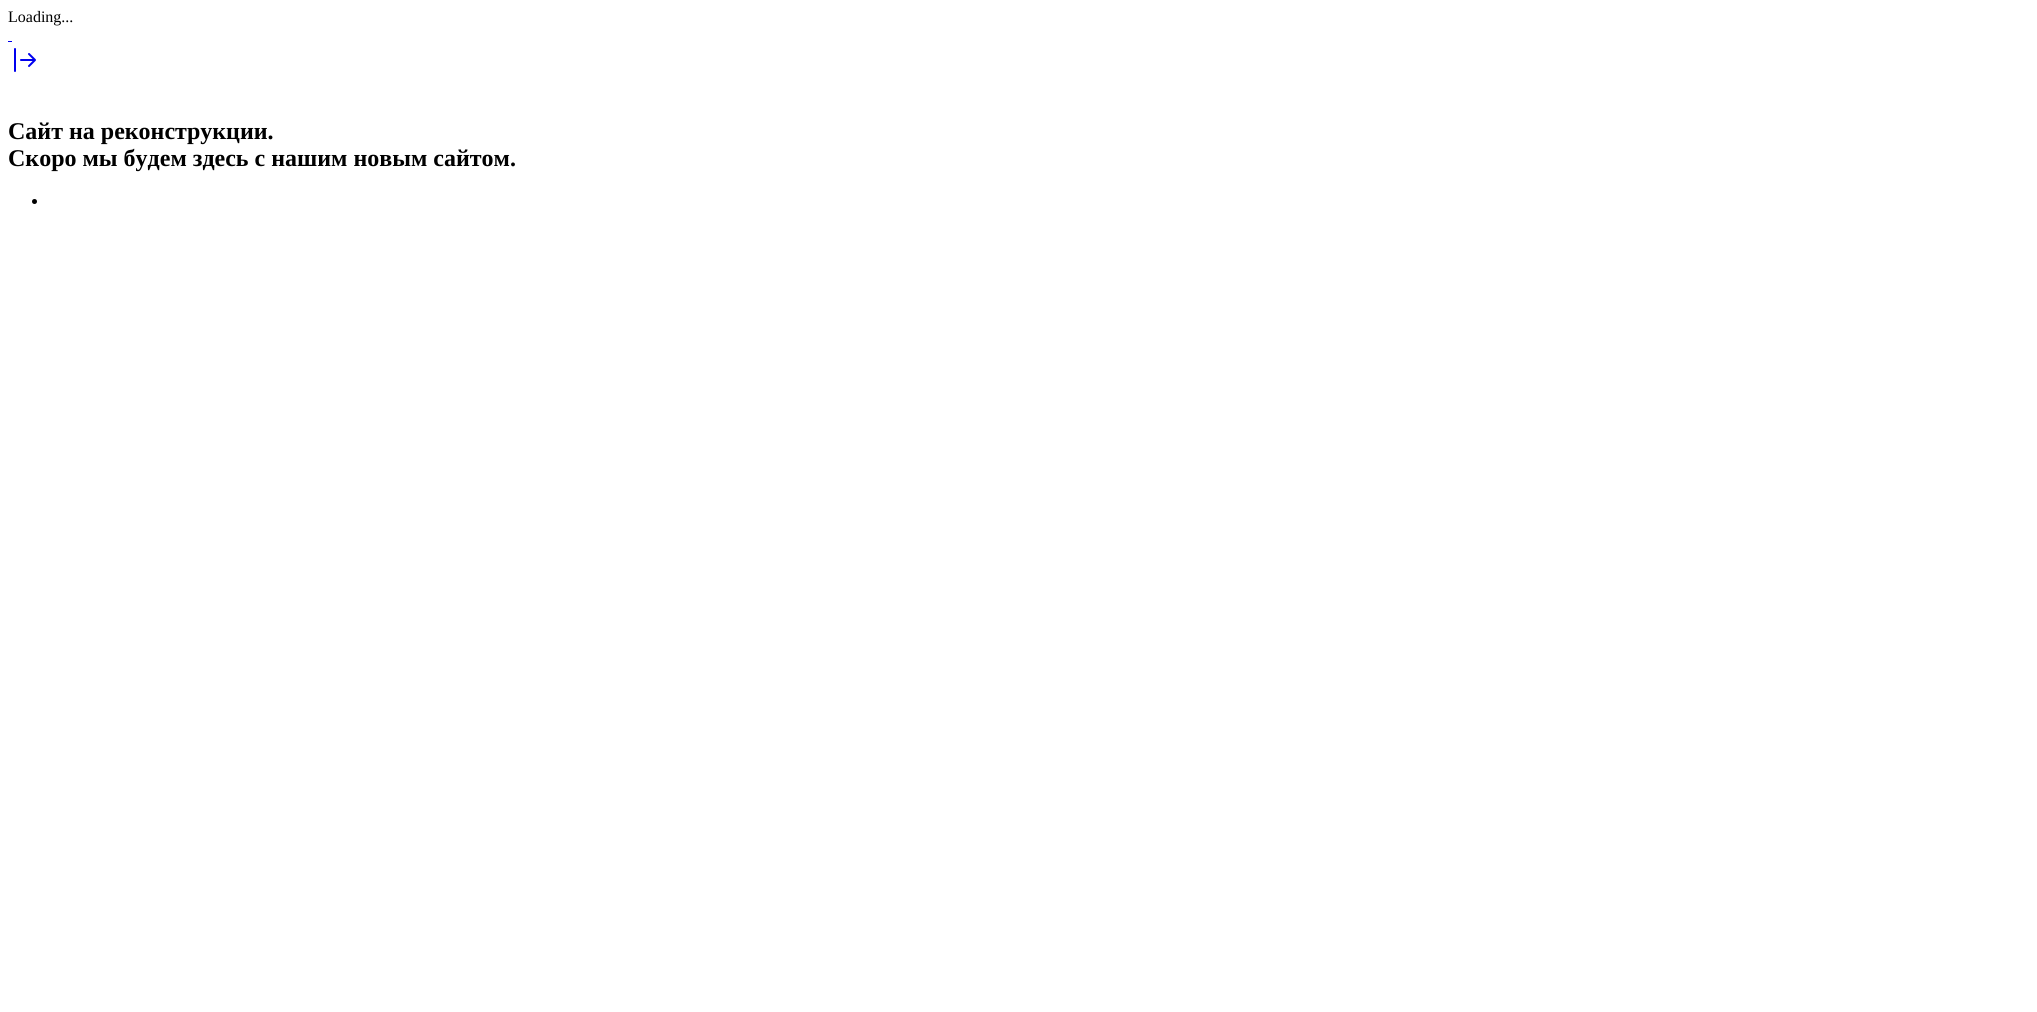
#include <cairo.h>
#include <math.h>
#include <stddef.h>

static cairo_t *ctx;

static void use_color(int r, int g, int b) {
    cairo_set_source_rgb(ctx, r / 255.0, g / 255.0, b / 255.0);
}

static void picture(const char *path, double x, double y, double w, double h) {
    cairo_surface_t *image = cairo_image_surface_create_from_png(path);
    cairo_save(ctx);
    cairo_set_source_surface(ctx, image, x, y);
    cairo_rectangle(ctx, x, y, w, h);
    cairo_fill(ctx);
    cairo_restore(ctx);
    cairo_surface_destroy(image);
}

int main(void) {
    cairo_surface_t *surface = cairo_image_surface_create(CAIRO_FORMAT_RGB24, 2037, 1012);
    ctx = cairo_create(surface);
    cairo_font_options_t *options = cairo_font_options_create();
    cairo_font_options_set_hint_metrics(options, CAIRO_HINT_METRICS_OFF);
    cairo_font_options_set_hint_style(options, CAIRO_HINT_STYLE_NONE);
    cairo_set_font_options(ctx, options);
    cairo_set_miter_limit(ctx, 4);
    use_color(255, 255, 255);
    cairo_paint(ctx);
    cairo_select_font_face(ctx, "Liberation Serif", CAIRO_FONT_SLANT_NORMAL, CAIRO_FONT_WEIGHT_NORMAL);
    cairo_set_font_size(ctx, 16);
    use_color(0, 0, 0);
    cairo_move_to(ctx, 8, 22);
    cairo_show_text(ctx, "Loading...");
    use_color(0, 0, 238);
    cairo_rectangle(ctx, 8, 41, 4, 1);
    cairo_fill(ctx);
    picture("img1.png", 14, 48, 22, 24);
    cairo_select_font_face(ctx, "Liberation Serif", CAIRO_FONT_SLANT_NORMAL, CAIRO_FONT_WEIGHT_BOLD);
    cairo_set_font_size(ctx, 24);
    use_color(0, 0, 0);
    cairo_move_to(ctx, 8, 139);
    cairo_show_text(ctx, "Сайт на реконструкции.");
    cairo_move_to(ctx, 8, 166);
    cairo_show_text(ctx, "Скоро мы будем здесь с нашим новым сайтом.");
    cairo_new_path(ctx);
    cairo_arc(ctx, 34.5, 201.5, 2.5, 0, 2 * M_PI);
    cairo_fill(ctx);
    cairo_surface_write_to_png(surface, "result.png");
    cairo_font_options_destroy(options);
    cairo_destroy(ctx);
    cairo_surface_destroy(surface);
    return 0;
}
